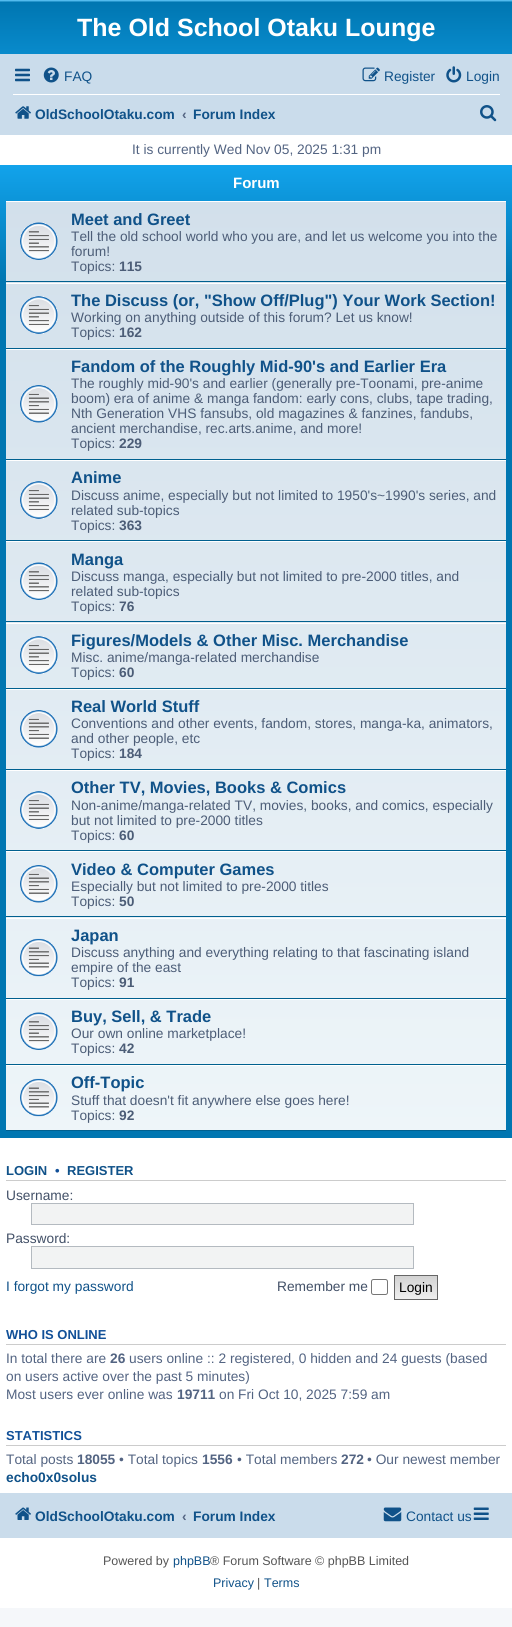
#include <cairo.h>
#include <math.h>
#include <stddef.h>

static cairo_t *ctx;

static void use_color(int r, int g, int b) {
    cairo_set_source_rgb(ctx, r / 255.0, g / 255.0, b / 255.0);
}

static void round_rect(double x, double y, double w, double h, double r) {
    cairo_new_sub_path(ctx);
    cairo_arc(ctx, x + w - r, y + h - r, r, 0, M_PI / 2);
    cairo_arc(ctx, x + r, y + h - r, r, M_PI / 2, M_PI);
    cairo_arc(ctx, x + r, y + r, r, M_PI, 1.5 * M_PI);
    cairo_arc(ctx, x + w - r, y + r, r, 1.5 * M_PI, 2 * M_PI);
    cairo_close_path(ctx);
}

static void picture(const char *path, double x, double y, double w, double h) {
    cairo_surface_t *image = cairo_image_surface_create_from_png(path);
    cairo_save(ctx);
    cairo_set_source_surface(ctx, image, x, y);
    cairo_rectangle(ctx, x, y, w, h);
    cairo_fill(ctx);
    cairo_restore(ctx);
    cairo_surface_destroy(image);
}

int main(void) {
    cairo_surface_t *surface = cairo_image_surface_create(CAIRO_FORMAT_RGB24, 512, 1627);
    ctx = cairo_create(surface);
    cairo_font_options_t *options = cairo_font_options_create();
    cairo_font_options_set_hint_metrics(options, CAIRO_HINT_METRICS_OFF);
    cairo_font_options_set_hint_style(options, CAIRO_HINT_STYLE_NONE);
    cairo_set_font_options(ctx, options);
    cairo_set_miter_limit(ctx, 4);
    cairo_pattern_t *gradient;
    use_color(245, 247, 250);
    cairo_paint(ctx);
    use_color(255, 255, 255);
    cairo_rectangle(ctx, 0, 135, 512, 1473);
    cairo_fill(ctx);
    gradient = cairo_pattern_create_linear(256, 0, 256, 115);
    cairo_pattern_add_color_stop_rgba(gradient, 0, 0.416, 0.808, 1, 1);
    cairo_pattern_add_color_stop_rgba(gradient, 0.02, 0, 0.463, 0.694, 1);
    cairo_pattern_add_color_stop_rgba(gradient, 1, 0.071, 0.639, 0.922, 1);
    cairo_set_source(ctx, gradient);
    cairo_pattern_destroy(gradient);
    cairo_rectangle(ctx, 0, 0, 512, 54);
    cairo_fill(ctx);
    cairo_select_font_face(ctx, "Liberation Sans", CAIRO_FONT_SLANT_NORMAL, CAIRO_FONT_WEIGHT_BOLD);
    cairo_set_font_size(ctx, 25);
    use_color(255, 255, 255);
    cairo_move_to(ctx, 77, 36);
    cairo_show_text(ctx, "The Old School Otaku Lounge");
    use_color(202, 220, 235);
    cairo_rectangle(ctx, 0, 54, 512, 81);
    cairo_fill(ctx);
    picture("img1.png", 15, 68, 15, 14);
    picture("img2.png", 43, 67, 16, 16);
    cairo_select_font_face(ctx, "Liberation Sans", CAIRO_FONT_SLANT_NORMAL, CAIRO_FONT_WEIGHT_NORMAL);
    cairo_set_font_size(ctx, 13.75);
    use_color(16, 82, 137);
    cairo_move_to(ctx, 64, 81);
    cairo_show_text(ctx, "FAQ");
    picture("img3.png", 362, 67, 18, 15);
    cairo_move_to(ctx, 384, 81);
    cairo_show_text(ctx, "Register");
    picture("img4.png", 446, 66, 16, 17);
    cairo_move_to(ctx, 466, 81);
    cairo_show_text(ctx, "Login");
    use_color(255, 255, 255);
    cairo_rectangle(ctx, 13, 94, 487, 1);
    cairo_fill(ctx);
    picture("img5.png", 15, 106, 16, 13);
    cairo_select_font_face(ctx, "Liberation Sans", CAIRO_FONT_SLANT_NORMAL, CAIRO_FONT_WEIGHT_BOLD);
    use_color(16, 82, 137);
    cairo_move_to(ctx, 35, 119);
    cairo_show_text(ctx, "OldSchoolOtaku.com");
    use_color(83, 100, 130);
    cairo_move_to(ctx, 182, 119);
    cairo_show_text(ctx, "‹");
    use_color(16, 82, 137);
    cairo_move_to(ctx, 193, 119);
    cairo_show_text(ctx, "Forum Index");
    picture("img6.png", 480, 105, 17, 17);
    cairo_select_font_face(ctx, "Liberation Sans", CAIRO_FONT_SLANT_NORMAL, CAIRO_FONT_WEIGHT_NORMAL);
    use_color(83, 100, 130);
    cairo_move_to(ctx, 132, 154);
    cairo_show_text(ctx, "It is currently Wed Nov 05, 2025 1:31 pm");
    gradient = cairo_pattern_create_linear(256, 165, 256, 1138);
    cairo_pattern_add_color_stop_rgba(gradient, 0, 0.416, 0.808, 1, 1);
    cairo_pattern_add_color_stop_rgba(gradient, 0, 0.071, 0.639, 0.922, 1);
    cairo_pattern_add_color_stop_rgba(gradient, 0.12, 0, 0.463, 0.694, 1);
    cairo_pattern_add_color_stop_rgba(gradient, 1, 0, 0.463, 0.694, 1);
    cairo_set_source(ctx, gradient);
    cairo_pattern_destroy(gradient);
    cairo_rectangle(ctx, 0, 165, 512, 973);
    cairo_fill(ctx);
    cairo_select_font_face(ctx, "Liberation Sans", CAIRO_FONT_SLANT_NORMAL, CAIRO_FONT_WEIGHT_BOLD);
    cairo_set_font_size(ctx, 15);
    use_color(255, 255, 255);
    cairo_move_to(ctx, 233, 188);
    cairo_show_text(ctx, "Forum");
    gradient = cairo_pattern_create_linear(256, 201, 256, 1131);
    cairo_pattern_add_color_stop_rgba(gradient, 0, 0.824, 0.878, 0.922, 1);
    cairo_pattern_add_color_stop_rgba(gradient, 1, 0.933, 0.961, 0.976, 1);
    cairo_set_source(ctx, gradient);
    cairo_pattern_destroy(gradient);
    cairo_rectangle(ctx, 6, 202, 500, 928);
    cairo_fill(ctx);
    use_color(255, 255, 255);
    cairo_rectangle(ctx, 6, 201, 500, 1);
    cairo_fill(ctx);
    use_color(0, 96, 143);
    cairo_rectangle(ctx, 6, 281, 500, 1);
    cairo_fill(ctx);
    picture("img7.png", 20, 222, 38, 38);
    cairo_set_font_size(ctx, 16.5);
    use_color(16, 82, 137);
    cairo_move_to(ctx, 71, 225);
    cairo_show_text(ctx, "Meet and Greet");
    cairo_select_font_face(ctx, "Liberation Sans", CAIRO_FONT_SLANT_NORMAL, CAIRO_FONT_WEIGHT_NORMAL);
    cairo_set_font_size(ctx, 13.75);
    use_color(76, 93, 119);
    cairo_move_to(ctx, 71, 241);
    cairo_show_text(ctx, "Tell the old school world who you are, and let us welcome you into the");
    cairo_move_to(ctx, 71, 256);
    cairo_show_text(ctx, "forum!");
    cairo_move_to(ctx, 71, 271);
    cairo_show_text(ctx, "Topics:");
    cairo_select_font_face(ctx, "Liberation Sans", CAIRO_FONT_SLANT_NORMAL, CAIRO_FONT_WEIGHT_BOLD);
    cairo_move_to(ctx, 119, 271);
    cairo_show_text(ctx, "115");
    use_color(255, 255, 255);
    cairo_rectangle(ctx, 6, 283, 500, 1);
    cairo_fill(ctx);
    use_color(0, 96, 143);
    cairo_rectangle(ctx, 6, 348, 500, 1);
    cairo_fill(ctx);
    picture("img8.png", 20, 296, 38, 38);
    cairo_set_font_size(ctx, 16.5);
    use_color(16, 82, 137);
    cairo_move_to(ctx, 71, 306);
    cairo_show_text(ctx, "The Discuss (or, \"Show Off/Plug\") Your Work Section!");
    cairo_select_font_face(ctx, "Liberation Sans", CAIRO_FONT_SLANT_NORMAL, CAIRO_FONT_WEIGHT_NORMAL);
    cairo_set_font_size(ctx, 13.75);
    use_color(76, 93, 119);
    cairo_move_to(ctx, 71, 322);
    cairo_show_text(ctx, "Working on anything outside of this forum? Let us know!");
    cairo_move_to(ctx, 71, 337);
    cairo_show_text(ctx, "Topics:");
    cairo_select_font_face(ctx, "Liberation Sans", CAIRO_FONT_SLANT_NORMAL, CAIRO_FONT_WEIGHT_BOLD);
    cairo_move_to(ctx, 119, 337);
    cairo_show_text(ctx, "162");
    use_color(255, 255, 255);
    cairo_rectangle(ctx, 6, 349, 500, 1);
    cairo_fill(ctx);
    use_color(0, 96, 143);
    cairo_rectangle(ctx, 6, 459, 500, 1);
    cairo_fill(ctx);
    picture("img9.png", 20, 385, 38, 38);
    cairo_set_font_size(ctx, 16.5);
    use_color(16, 82, 137);
    cairo_move_to(ctx, 71, 372);
    cairo_show_text(ctx, "Fandom of the Roughly Mid-90's and Earlier Era");
    cairo_select_font_face(ctx, "Liberation Sans", CAIRO_FONT_SLANT_NORMAL, CAIRO_FONT_WEIGHT_NORMAL);
    cairo_set_font_size(ctx, 13.75);
    use_color(76, 93, 119);
    cairo_move_to(ctx, 71, 388);
    cairo_show_text(ctx, "The roughly mid-90's and earlier (generally pre-Toonami, pre-anime");
    cairo_move_to(ctx, 71, 403);
    cairo_show_text(ctx, "boom) era of anime & manga fandom: early cons, clubs, tape trading,");
    cairo_move_to(ctx, 71, 418);
    cairo_show_text(ctx, "Nth Generation VHS fansubs, old magazines & fanzines, fandubs,");
    cairo_move_to(ctx, 71, 433);
    cairo_show_text(ctx, "ancient merchandise, rec.arts.anime, and more!");
    cairo_move_to(ctx, 71, 448);
    cairo_show_text(ctx, "Topics:");
    cairo_select_font_face(ctx, "Liberation Sans", CAIRO_FONT_SLANT_NORMAL, CAIRO_FONT_WEIGHT_BOLD);
    cairo_move_to(ctx, 119, 448);
    cairo_show_text(ctx, "229");
    use_color(255, 255, 255);
    cairo_rectangle(ctx, 6, 460, 500, 1);
    cairo_fill(ctx);
    use_color(0, 96, 143);
    cairo_rectangle(ctx, 6, 540, 500, 1);
    cairo_fill(ctx);
    picture("img10.png", 20, 481, 38, 38);
    cairo_set_font_size(ctx, 16.5);
    use_color(16, 82, 137);
    cairo_move_to(ctx, 71, 483);
    cairo_show_text(ctx, "Anime");
    cairo_select_font_face(ctx, "Liberation Sans", CAIRO_FONT_SLANT_NORMAL, CAIRO_FONT_WEIGHT_NORMAL);
    cairo_set_font_size(ctx, 13.75);
    use_color(76, 93, 119);
    cairo_move_to(ctx, 71, 500);
    cairo_show_text(ctx, "Discuss anime, especially but not limited to 1950's~1990's series, and");
    cairo_move_to(ctx, 71, 515);
    cairo_show_text(ctx, "related sub-topics");
    cairo_move_to(ctx, 71, 530);
    cairo_show_text(ctx, "Topics:");
    cairo_select_font_face(ctx, "Liberation Sans", CAIRO_FONT_SLANT_NORMAL, CAIRO_FONT_WEIGHT_BOLD);
    cairo_move_to(ctx, 119, 530);
    cairo_show_text(ctx, "363");
    use_color(255, 255, 255);
    cairo_rectangle(ctx, 6, 541, 500, 1);
    cairo_fill(ctx);
    use_color(0, 96, 143);
    cairo_rectangle(ctx, 6, 621, 500, 1);
    cairo_fill(ctx);
    picture("img11.png", 20, 562, 38, 38);
    cairo_set_font_size(ctx, 16.5);
    use_color(16, 82, 137);
    cairo_move_to(ctx, 71, 565);
    cairo_show_text(ctx, "Manga");
    cairo_select_font_face(ctx, "Liberation Sans", CAIRO_FONT_SLANT_NORMAL, CAIRO_FONT_WEIGHT_NORMAL);
    cairo_set_font_size(ctx, 13.75);
    use_color(76, 93, 119);
    cairo_move_to(ctx, 71, 581);
    cairo_show_text(ctx, "Discuss manga, especially but not limited to pre-2000 titles, and");
    cairo_move_to(ctx, 71, 596);
    cairo_show_text(ctx, "related sub-topics");
    cairo_move_to(ctx, 71, 611);
    cairo_show_text(ctx, "Topics:");
    cairo_select_font_face(ctx, "Liberation Sans", CAIRO_FONT_SLANT_NORMAL, CAIRO_FONT_WEIGHT_BOLD);
    cairo_move_to(ctx, 119, 611);
    cairo_show_text(ctx, "76");
    use_color(255, 255, 255);
    cairo_rectangle(ctx, 6, 623, 500, 1);
    cairo_fill(ctx);
    use_color(0, 96, 143);
    cairo_rectangle(ctx, 6, 688, 500, 1);
    cairo_fill(ctx);
    picture("img12.png", 20, 636, 38, 38);
    cairo_set_font_size(ctx, 16.5);
    use_color(16, 82, 137);
    cairo_move_to(ctx, 71, 646);
    cairo_show_text(ctx, "Figures/Models & Other Misc. Merchandise");
    cairo_select_font_face(ctx, "Liberation Sans", CAIRO_FONT_SLANT_NORMAL, CAIRO_FONT_WEIGHT_NORMAL);
    cairo_set_font_size(ctx, 13.75);
    use_color(76, 93, 119);
    cairo_move_to(ctx, 71, 662);
    cairo_show_text(ctx, "Misc. anime/manga-related merchandise");
    cairo_move_to(ctx, 71, 677);
    cairo_show_text(ctx, "Topics:");
    cairo_select_font_face(ctx, "Liberation Sans", CAIRO_FONT_SLANT_NORMAL, CAIRO_FONT_WEIGHT_BOLD);
    cairo_move_to(ctx, 119, 677);
    cairo_show_text(ctx, "60");
    use_color(255, 255, 255);
    cairo_rectangle(ctx, 6, 689, 500, 1);
    cairo_fill(ctx);
    use_color(0, 96, 143);
    cairo_rectangle(ctx, 6, 769, 500, 1);
    cairo_fill(ctx);
    picture("img13.png", 20, 710, 38, 38);
    cairo_set_font_size(ctx, 16.5);
    use_color(16, 82, 137);
    cairo_move_to(ctx, 71, 712);
    cairo_show_text(ctx, "Real World Stuff");
    cairo_select_font_face(ctx, "Liberation Sans", CAIRO_FONT_SLANT_NORMAL, CAIRO_FONT_WEIGHT_NORMAL);
    cairo_set_font_size(ctx, 13.75);
    use_color(76, 93, 119);
    cairo_move_to(ctx, 71, 728);
    cairo_show_text(ctx, "Conventions and other events, fandom, stores, manga-ka, animators,");
    cairo_move_to(ctx, 71, 743);
    cairo_show_text(ctx, "and other people, etc");
    cairo_move_to(ctx, 71, 758);
    cairo_show_text(ctx, "Topics:");
    cairo_select_font_face(ctx, "Liberation Sans", CAIRO_FONT_SLANT_NORMAL, CAIRO_FONT_WEIGHT_BOLD);
    cairo_move_to(ctx, 119, 758);
    cairo_show_text(ctx, "184");
    use_color(255, 255, 255);
    cairo_rectangle(ctx, 6, 770, 500, 1);
    cairo_fill(ctx);
    use_color(0, 96, 143);
    cairo_rectangle(ctx, 6, 850, 500, 1);
    cairo_fill(ctx);
    picture("img14.png", 20, 791, 38, 38);
    cairo_set_font_size(ctx, 16.5);
    use_color(16, 82, 137);
    cairo_move_to(ctx, 71, 793);
    cairo_show_text(ctx, "Other TV, Movies, Books & Comics");
    cairo_select_font_face(ctx, "Liberation Sans", CAIRO_FONT_SLANT_NORMAL, CAIRO_FONT_WEIGHT_NORMAL);
    cairo_set_font_size(ctx, 13.75);
    use_color(76, 93, 119);
    cairo_move_to(ctx, 71, 810);
    cairo_show_text(ctx, "Non-anime/manga-related TV, movies, books, and comics, especially");
    cairo_move_to(ctx, 71, 825);
    cairo_show_text(ctx, "but not limited to pre-2000 titles");
    cairo_move_to(ctx, 71, 840);
    cairo_show_text(ctx, "Topics:");
    cairo_select_font_face(ctx, "Liberation Sans", CAIRO_FONT_SLANT_NORMAL, CAIRO_FONT_WEIGHT_BOLD);
    cairo_move_to(ctx, 119, 840);
    cairo_show_text(ctx, "60");
    use_color(255, 255, 255);
    cairo_rectangle(ctx, 6, 851, 500, 1);
    cairo_fill(ctx);
    use_color(0, 96, 143);
    cairo_rectangle(ctx, 6, 916, 500, 1);
    cairo_fill(ctx);
    picture("img15.png", 20, 865, 38, 38);
    cairo_set_font_size(ctx, 16.5);
    use_color(16, 82, 137);
    cairo_move_to(ctx, 71, 875);
    cairo_show_text(ctx, "Video & Computer Games");
    cairo_select_font_face(ctx, "Liberation Sans", CAIRO_FONT_SLANT_NORMAL, CAIRO_FONT_WEIGHT_NORMAL);
    cairo_set_font_size(ctx, 13.75);
    use_color(76, 93, 119);
    cairo_move_to(ctx, 71, 891);
    cairo_show_text(ctx, "Especially but not limited to pre-2000 titles");
    cairo_move_to(ctx, 71, 906);
    cairo_show_text(ctx, "Topics:");
    cairo_select_font_face(ctx, "Liberation Sans", CAIRO_FONT_SLANT_NORMAL, CAIRO_FONT_WEIGHT_BOLD);
    cairo_move_to(ctx, 119, 906);
    cairo_show_text(ctx, "50");
    use_color(255, 255, 255);
    cairo_rectangle(ctx, 6, 918, 500, 1);
    cairo_fill(ctx);
    use_color(0, 96, 143);
    cairo_rectangle(ctx, 6, 998, 500, 1);
    cairo_fill(ctx);
    picture("img16.png", 20, 938, 38, 39);
    cairo_set_font_size(ctx, 16.5);
    use_color(16, 82, 137);
    cairo_move_to(ctx, 71, 941);
    cairo_show_text(ctx, "Japan");
    cairo_select_font_face(ctx, "Liberation Sans", CAIRO_FONT_SLANT_NORMAL, CAIRO_FONT_WEIGHT_NORMAL);
    cairo_set_font_size(ctx, 13.75);
    use_color(76, 93, 119);
    cairo_move_to(ctx, 71, 957);
    cairo_show_text(ctx, "Discuss anything and everything relating to that fascinating island");
    cairo_move_to(ctx, 71, 972);
    cairo_show_text(ctx, "empire of the east");
    cairo_move_to(ctx, 71, 987);
    cairo_show_text(ctx, "Topics:");
    cairo_select_font_face(ctx, "Liberation Sans", CAIRO_FONT_SLANT_NORMAL, CAIRO_FONT_WEIGHT_BOLD);
    cairo_move_to(ctx, 119, 987);
    cairo_show_text(ctx, "91");
    use_color(255, 255, 255);
    cairo_rectangle(ctx, 6, 999, 500, 1);
    cairo_fill(ctx);
    use_color(0, 96, 143);
    cairo_rectangle(ctx, 6, 1064, 500, 1);
    cairo_fill(ctx);
    picture("img17.png", 20, 1012, 38, 38);
    cairo_set_font_size(ctx, 16.5);
    use_color(16, 82, 137);
    cairo_move_to(ctx, 71, 1022);
    cairo_show_text(ctx, "Buy, Sell, & Trade");
    cairo_select_font_face(ctx, "Liberation Sans", CAIRO_FONT_SLANT_NORMAL, CAIRO_FONT_WEIGHT_NORMAL);
    cairo_set_font_size(ctx, 13.75);
    use_color(76, 93, 119);
    cairo_move_to(ctx, 71, 1038);
    cairo_show_text(ctx, "Our own online marketplace!");
    cairo_move_to(ctx, 71, 1053);
    cairo_show_text(ctx, "Topics:");
    cairo_select_font_face(ctx, "Liberation Sans", CAIRO_FONT_SLANT_NORMAL, CAIRO_FONT_WEIGHT_BOLD);
    cairo_move_to(ctx, 119, 1053);
    cairo_show_text(ctx, "42");
    use_color(255, 255, 255);
    cairo_rectangle(ctx, 6, 1065, 500, 1);
    cairo_fill(ctx);
    use_color(0, 96, 143);
    cairo_rectangle(ctx, 6, 1130, 500, 1);
    cairo_fill(ctx);
    picture("img18.png", 20, 1078, 38, 39);
    cairo_set_font_size(ctx, 16.5);
    use_color(16, 82, 137);
    cairo_move_to(ctx, 71, 1088);
    cairo_show_text(ctx, "Off-Topic");
    cairo_select_font_face(ctx, "Liberation Sans", CAIRO_FONT_SLANT_NORMAL, CAIRO_FONT_WEIGHT_NORMAL);
    cairo_set_font_size(ctx, 13.75);
    use_color(76, 93, 119);
    cairo_move_to(ctx, 71, 1105);
    cairo_show_text(ctx, "Stuff that doesn't fit anywhere else goes here!");
    cairo_move_to(ctx, 71, 1120);
    cairo_show_text(ctx, "Topics:");
    cairo_select_font_face(ctx, "Liberation Sans", CAIRO_FONT_SLANT_NORMAL, CAIRO_FONT_WEIGHT_BOLD);
    cairo_move_to(ctx, 119, 1120);
    cairo_show_text(ctx, "92");
    use_color(204, 204, 204);
    cairo_rectangle(ctx, 6, 1180, 500, 1);
    cairo_fill(ctx);
    cairo_set_font_size(ctx, 13);
    use_color(16, 82, 137);
    cairo_move_to(ctx, 6, 1175);
    cairo_show_text(ctx, "LOGIN");
    use_color(17, 80, 152);
    cairo_move_to(ctx, 55, 1175);
    cairo_show_text(ctx, "•");
    use_color(16, 82, 137);
    cairo_move_to(ctx, 67, 1175);
    cairo_show_text(ctx, "REGISTER");
    cairo_select_font_face(ctx, "Liberation Sans", CAIRO_FONT_SLANT_NORMAL, CAIRO_FONT_WEIGHT_NORMAL);
    cairo_set_font_size(ctx, 13.75);
    use_color(66, 80, 103);
    cairo_move_to(ctx, 6, 1200);
    cairo_show_text(ctx, "Username:");
    use_color(242, 243, 243);
    cairo_rectangle(ctx, 31.5, 1203.5, 382, 21);
    cairo_fill_preserve(ctx);
    use_color(180, 186, 192);
    cairo_set_line_width(ctx, 1);
    cairo_stroke(ctx);
    use_color(66, 80, 103);
    cairo_move_to(ctx, 6, 1243);
    cairo_show_text(ctx, "Password:");
    use_color(242, 243, 243);
    cairo_rectangle(ctx, 31.5, 1246.5, 382, 22);
    cairo_fill_preserve(ctx);
    use_color(180, 186, 192);
    cairo_stroke(ctx);
    use_color(16, 82, 137);
    cairo_move_to(ctx, 6, 1291);
    cairo_show_text(ctx, "I forgot my password");
    use_color(66, 80, 103);
    cairo_move_to(ctx, 277, 1291);
    cairo_show_text(ctx, "Remember me");
    round_rect(371.5, 1279.5, 16, 15, 2);
    use_color(118, 118, 118);
    cairo_stroke(ctx);
    gradient = cairo_pattern_create_linear(416, 1276, 416, 1299);
    cairo_pattern_add_color_stop_rgba(gradient, 0, 0.824, 0.824, 0.824, 1);
    cairo_pattern_add_color_stop_rgba(gradient, 1, 0.937, 0.937, 0.937, 1);
    cairo_set_source(ctx, gradient);
    cairo_pattern_destroy(gradient);
    cairo_rectangle(ctx, 395, 1276, 42, 23);
    cairo_fill(ctx);
    cairo_rectangle(ctx, 394.5, 1275.5, 43, 24);
    use_color(102, 102, 102);
    cairo_stroke(ctx);
    use_color(0, 0, 0);
    cairo_move_to(ctx, 399, 1292);
    cairo_show_text(ctx, "Login");
    use_color(204, 204, 204);
    cairo_rectangle(ctx, 6, 1344, 500, 1);
    cairo_fill(ctx);
    cairo_select_font_face(ctx, "Liberation Sans", CAIRO_FONT_SLANT_NORMAL, CAIRO_FONT_WEIGHT_BOLD);
    cairo_set_font_size(ctx, 13);
    use_color(17, 80, 152);
    cairo_move_to(ctx, 6, 1339);
    cairo_show_text(ctx, "WHO IS ONLINE");
    cairo_select_font_face(ctx, "Liberation Sans", CAIRO_FONT_SLANT_NORMAL, CAIRO_FONT_WEIGHT_NORMAL);
    cairo_set_font_size(ctx, 13.75);
    use_color(83, 100, 130);
    cairo_move_to(ctx, 6, 1363);
    cairo_show_text(ctx, "In total there are");
    cairo_select_font_face(ctx, "Liberation Sans", CAIRO_FONT_SLANT_NORMAL, CAIRO_FONT_WEIGHT_BOLD);
    cairo_move_to(ctx, 110, 1363);
    cairo_show_text(ctx, "26");
    cairo_select_font_face(ctx, "Liberation Sans", CAIRO_FONT_SLANT_NORMAL, CAIRO_FONT_WEIGHT_NORMAL);
    cairo_move_to(ctx, 129, 1363);
    cairo_show_text(ctx, "users online :: 2 registered, 0 hidden and 24 guests (based");
    cairo_move_to(ctx, 6, 1381);
    cairo_show_text(ctx, "on users active over the past 5 minutes)");
    cairo_move_to(ctx, 6, 1399);
    cairo_show_text(ctx, "Most users ever online was");
    cairo_select_font_face(ctx, "Liberation Sans", CAIRO_FONT_SLANT_NORMAL, CAIRO_FONT_WEIGHT_BOLD);
    cairo_move_to(ctx, 177, 1399);
    cairo_show_text(ctx, "19711");
    cairo_select_font_face(ctx, "Liberation Sans", CAIRO_FONT_SLANT_NORMAL, CAIRO_FONT_WEIGHT_NORMAL);
    cairo_move_to(ctx, 219, 1399);
    cairo_show_text(ctx, "on Fri Oct 10, 2025 7:59 am");
    use_color(204, 204, 204);
    cairo_rectangle(ctx, 6, 1445, 500, 1);
    cairo_fill(ctx);
    cairo_select_font_face(ctx, "Liberation Sans", CAIRO_FONT_SLANT_NORMAL, CAIRO_FONT_WEIGHT_BOLD);
    cairo_set_font_size(ctx, 13);
    use_color(17, 80, 152);
    cairo_move_to(ctx, 6, 1440);
    cairo_show_text(ctx, "STATISTICS");
    cairo_select_font_face(ctx, "Liberation Sans", CAIRO_FONT_SLANT_NORMAL, CAIRO_FONT_WEIGHT_NORMAL);
    cairo_set_font_size(ctx, 13.75);
    use_color(83, 100, 130);
    cairo_move_to(ctx, 6, 1464);
    cairo_show_text(ctx, "Total posts");
    cairo_select_font_face(ctx, "Liberation Sans", CAIRO_FONT_SLANT_NORMAL, CAIRO_FONT_WEIGHT_BOLD);
    cairo_move_to(ctx, 77, 1464);
    cairo_show_text(ctx, "18055");
    cairo_select_font_face(ctx, "Liberation Sans", CAIRO_FONT_SLANT_NORMAL, CAIRO_FONT_WEIGHT_NORMAL);
    cairo_move_to(ctx, 119, 1464);
    cairo_show_text(ctx, "• Total topics");
    cairo_select_font_face(ctx, "Liberation Sans", CAIRO_FONT_SLANT_NORMAL, CAIRO_FONT_WEIGHT_BOLD);
    cairo_move_to(ctx, 202, 1464);
    cairo_show_text(ctx, "1556");
    cairo_select_font_face(ctx, "Liberation Sans", CAIRO_FONT_SLANT_NORMAL, CAIRO_FONT_WEIGHT_NORMAL);
    cairo_move_to(ctx, 237, 1464);
    cairo_show_text(ctx, "• Total members");
    cairo_select_font_face(ctx, "Liberation Sans", CAIRO_FONT_SLANT_NORMAL, CAIRO_FONT_WEIGHT_BOLD);
    cairo_move_to(ctx, 341, 1464);
    cairo_show_text(ctx, "272");
    cairo_select_font_face(ctx, "Liberation Sans", CAIRO_FONT_SLANT_NORMAL, CAIRO_FONT_WEIGHT_NORMAL);
    cairo_move_to(ctx, 367, 1464);
    cairo_show_text(ctx, "• Our newest member");
    cairo_select_font_face(ctx, "Liberation Sans", CAIRO_FONT_SLANT_NORMAL, CAIRO_FONT_WEIGHT_BOLD);
    use_color(16, 82, 137);
    cairo_move_to(ctx, 6, 1482);
    cairo_show_text(ctx, "echo0x0solus");
    use_color(202, 220, 235);
    cairo_rectangle(ctx, 0, 1493, 512, 45);
    cairo_fill(ctx);
    picture("img19.png", 15, 1507, 16, 13);
    use_color(16, 82, 137);
    cairo_move_to(ctx, 35, 1521);
    cairo_show_text(ctx, "OldSchoolOtaku.com");
    use_color(83, 100, 130);
    cairo_move_to(ctx, 182, 1521);
    cairo_show_text(ctx, "‹");
    use_color(16, 82, 137);
    cairo_move_to(ctx, 193, 1521);
    cairo_show_text(ctx, "Forum Index");
    picture("img20.png", 383, 1507, 19, 15);
    cairo_select_font_face(ctx, "Liberation Sans", CAIRO_FONT_SLANT_NORMAL, CAIRO_FONT_WEIGHT_NORMAL);
    cairo_move_to(ctx, 406, 1521);
    cairo_show_text(ctx, "Contact us");
    picture("img21.png", 473, 1507, 16, 13);
    cairo_set_font_size(ctx, 12.5);
    use_color(85, 85, 85);
    cairo_move_to(ctx, 103, 1565);
    cairo_show_text(ctx, "Powered by");
    use_color(16, 82, 137);
    cairo_move_to(ctx, 173, 1565);
    cairo_show_text(ctx, "phpBB");
    use_color(85, 85, 85);
    cairo_move_to(ctx, 210, 1565);
    cairo_show_text(ctx, "® Forum Software © phpBB Limited");
    use_color(16, 82, 137);
    cairo_move_to(ctx, 213, 1587);
    cairo_show_text(ctx, "Privacy");
    use_color(85, 85, 85);
    cairo_move_to(ctx, 257, 1587);
    cairo_show_text(ctx, "|");
    use_color(16, 82, 137);
    cairo_move_to(ctx, 264, 1587);
    cairo_show_text(ctx, "Terms");
    cairo_surface_write_to_png(surface, "result.png");
    cairo_font_options_destroy(options);
    cairo_destroy(ctx);
    cairo_surface_destroy(surface);
    return 0;
}
